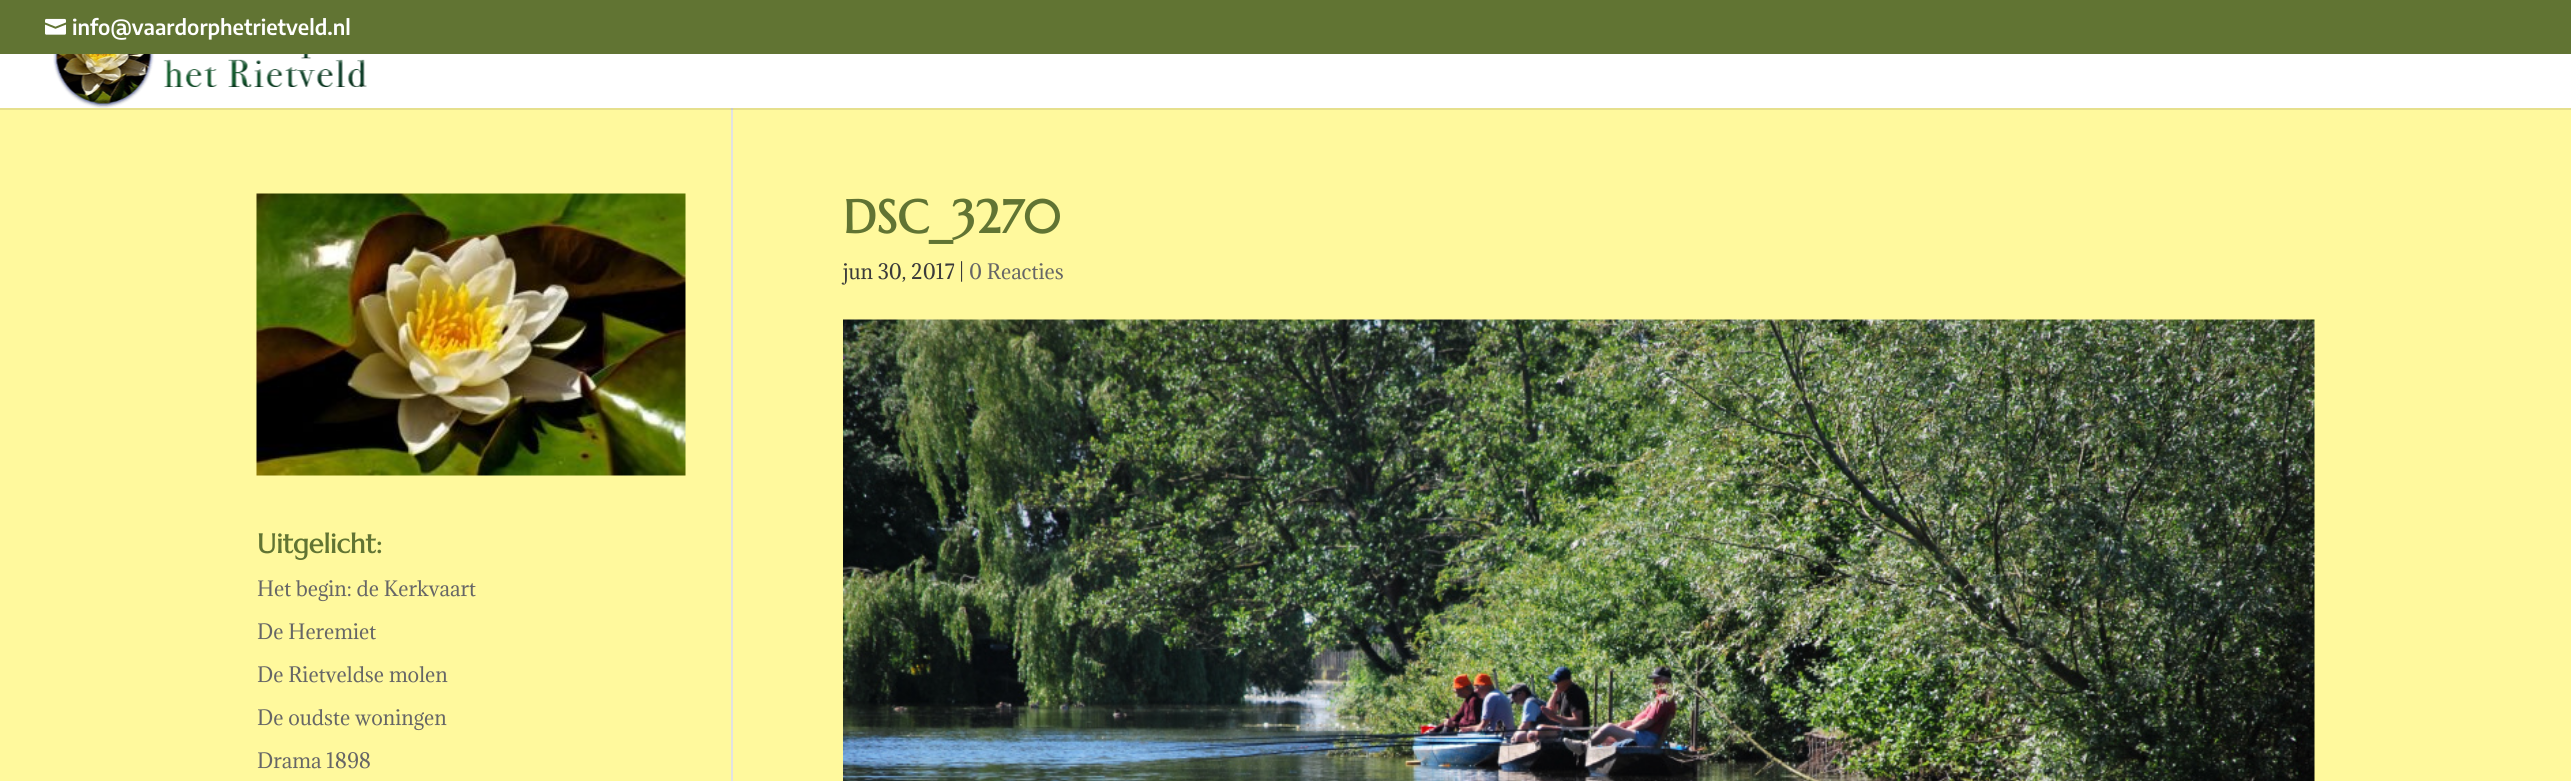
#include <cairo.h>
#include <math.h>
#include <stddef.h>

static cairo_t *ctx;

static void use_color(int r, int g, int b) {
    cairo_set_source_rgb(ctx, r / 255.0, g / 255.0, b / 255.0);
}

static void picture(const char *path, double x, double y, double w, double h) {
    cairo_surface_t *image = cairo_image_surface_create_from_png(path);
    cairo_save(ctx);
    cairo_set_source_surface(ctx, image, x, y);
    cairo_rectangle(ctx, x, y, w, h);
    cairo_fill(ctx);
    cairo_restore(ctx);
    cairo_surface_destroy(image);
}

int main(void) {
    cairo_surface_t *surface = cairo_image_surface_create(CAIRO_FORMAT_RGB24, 2571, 781);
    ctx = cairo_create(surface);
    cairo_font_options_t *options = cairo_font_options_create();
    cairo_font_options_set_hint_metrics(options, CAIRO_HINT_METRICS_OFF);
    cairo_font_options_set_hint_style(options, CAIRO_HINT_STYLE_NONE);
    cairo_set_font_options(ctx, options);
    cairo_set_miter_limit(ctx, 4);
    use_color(255, 249, 157);
    cairo_paint(ctx);
    use_color(230, 224, 141);
    cairo_rectangle(ctx, 0, 108, 2571, 2);
    cairo_fill(ctx);
    use_color(97, 116, 51);
    cairo_rectangle(ctx, 0, 0, 2571, 54);
    cairo_fill(ctx);
    picture("img1.png", 45, 18, 21, 17);
    cairo_select_font_face(ctx, "Encode Sans Condensed Thin", CAIRO_FONT_SLANT_NORMAL, CAIRO_FONT_WEIGHT_NORMAL);
    cairo_set_font_size(ctx, 21);
    use_color(255, 255, 255);
    cairo_move_to(ctx, 72, 35);
    cairo_show_text(ctx, "info@vaardorphetrietveld.nl");
    use_color(226, 226, 226);
    cairo_rectangle(ctx, 731, 107, 2, 674);
    cairo_fill(ctx);
    use_color(255, 255, 255);
    cairo_rectangle(ctx, 0, 54, 2571, 54);
    cairo_fill(ctx);
    picture("img2.png", 53, 54, 314, 54);
    use_color(203, 203, 203);
    cairo_rectangle(ctx, 731, 108, 2, 2);
    cairo_fill(ctx);
    cairo_select_font_face(ctx, "Marcellus", CAIRO_FONT_SLANT_NORMAL, CAIRO_FONT_WEIGHT_BOLD);
    cairo_set_font_size(ctx, 46.5);
    use_color(97, 116, 51);
    cairo_move_to(ctx, 843, 233);
    cairo_show_text(ctx, "DSC_3270");
    cairo_select_font_face(ctx, "Adamina", CAIRO_FONT_SLANT_NORMAL, CAIRO_FONT_WEIGHT_NORMAL);
    cairo_set_font_size(ctx, 19.5);
    use_color(58, 58, 58);
    cairo_move_to(ctx, 843, 279);
    cairo_show_text(ctx, "jun 30, 2017 |");
    use_color(102, 102, 102);
    cairo_move_to(ctx, 969, 279);
    cairo_show_text(ctx, "0 Reacties");
    picture("img3.png", 843, 319, 1472, 462);
    picture("img4.png", 256, 193, 430, 283);
    cairo_select_font_face(ctx, "Marcellus", CAIRO_FONT_SLANT_NORMAL, CAIRO_FONT_WEIGHT_BOLD);
    cairo_set_font_size(ctx, 27);
    use_color(97, 116, 51);
    cairo_move_to(ctx, 257, 553);
    cairo_show_text(ctx, "Uitgelicht:");
    cairo_select_font_face(ctx, "Adamina", CAIRO_FONT_SLANT_NORMAL, CAIRO_FONT_WEIGHT_NORMAL);
    cairo_set_font_size(ctx, 19.5);
    use_color(102, 102, 102);
    cairo_move_to(ctx, 257, 596);
    cairo_show_text(ctx, "Het begin: de Kerkvaart");
    cairo_move_to(ctx, 257, 639);
    cairo_show_text(ctx, "De Heremiet");
    cairo_move_to(ctx, 257, 682);
    cairo_show_text(ctx, "De Rietveldse molen");
    cairo_move_to(ctx, 257, 725);
    cairo_show_text(ctx, "De oudste woningen");
    cairo_move_to(ctx, 257, 768);
    cairo_show_text(ctx, "Drama 1898");
    cairo_surface_write_to_png(surface, "result.png");
    cairo_font_options_destroy(options);
    cairo_destroy(ctx);
    cairo_surface_destroy(surface);
    return 0;
}
